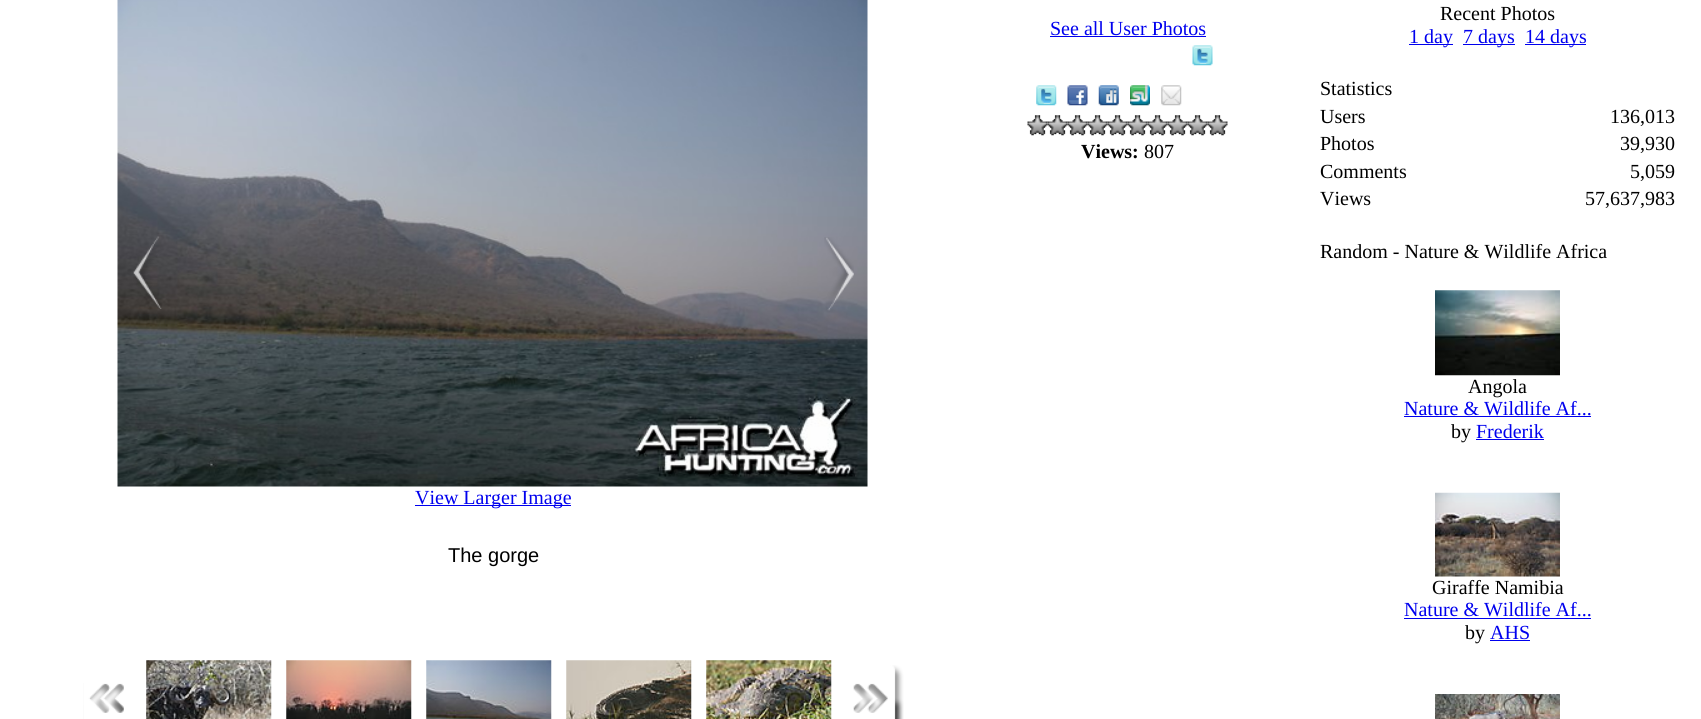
#include <cairo.h>
#include <math.h>
#include <stddef.h>

static cairo_t *ctx;

static void use_color(int r, int g, int b) {
    cairo_set_source_rgb(ctx, r / 255.0, g / 255.0, b / 255.0);
}

static void picture(const char *path, double x, double y, double w, double h) {
    cairo_surface_t *image = cairo_image_surface_create_from_png(path);
    cairo_save(ctx);
    cairo_set_source_surface(ctx, image, x, y);
    cairo_rectangle(ctx, x, y, w, h);
    cairo_fill(ctx);
    cairo_restore(ctx);
    cairo_surface_destroy(image);
}

int main(void) {
    cairo_surface_t *surface = cairo_image_surface_create(CAIRO_FORMAT_RGB24, 1701, 719);
    ctx = cairo_create(surface);
    cairo_font_options_t *options = cairo_font_options_create();
    cairo_font_options_set_hint_metrics(options, CAIRO_HINT_METRICS_OFF);
    cairo_font_options_set_hint_style(options, CAIRO_HINT_STYLE_NONE);
    cairo_set_font_options(ctx, options);
    cairo_set_miter_limit(ctx, 4);
    use_color(255, 255, 255);
    cairo_paint(ctx);
    cairo_select_font_face(ctx, "Liberation Serif", CAIRO_FONT_SLANT_NORMAL, CAIRO_FONT_WEIGHT_NORMAL);
    cairo_set_font_size(ctx, 20);
    use_color(0, 0, 238);
    cairo_move_to(ctx, 1050, 35);
    cairo_show_text(ctx, "See all User Photos");
    cairo_rectangle(ctx, 1050, 36, 156, 1);
    cairo_fill(ctx);
    picture("img1.png", 1192, 45, 21, 21);
    picture("img2.png", 1036, 85, 21, 21);
    picture("img3.png", 1067, 85, 21, 21);
    picture("img4.png", 1098, 85, 21, 21);
    picture("img5.png", 1130, 85, 20, 21);
    picture("img6.png", 1161, 85, 21, 21);
    picture("img7.png", 1027, 115, 21, 21);
    picture("img8.png", 1047, 115, 21, 21);
    picture("img8.png", 1067, 115, 21, 21);
    picture("img8.png", 1087, 115, 21, 21);
    picture("img8.png", 1107, 115, 21, 21);
    picture("img8.png", 1127, 115, 21, 21);
    picture("img8.png", 1147, 115, 21, 21);
    picture("img8.png", 1167, 115, 21, 21);
    picture("img9.png", 1187, 115, 21, 21);
    picture("img9.png", 1207, 115, 21, 21);
    cairo_select_font_face(ctx, "Liberation Serif", CAIRO_FONT_SLANT_NORMAL, CAIRO_FONT_WEIGHT_BOLD);
    use_color(0, 0, 0);
    cairo_move_to(ctx, 1081, 158);
    cairo_show_text(ctx, "Views:");
    cairo_select_font_face(ctx, "Liberation Serif", CAIRO_FONT_SLANT_NORMAL, CAIRO_FONT_WEIGHT_NORMAL);
    cairo_move_to(ctx, 1144, 158);
    cairo_show_text(ctx, "807");
    picture("img10.png", 117, 0, 751, 487);
    picture("img11.png", 133, 236, 29, 73);
    picture("img12.png", 824, 237, 30, 74);
    use_color(0, 0, 238);
    cairo_rectangle(ctx, 415, 505, 156, 1);
    cairo_fill(ctx);
    cairo_move_to(ctx, 415, 504);
    cairo_show_text(ctx, "View Larger Image");
    cairo_select_font_face(ctx, "Liberation Sans", CAIRO_FONT_SLANT_NORMAL, CAIRO_FONT_WEIGHT_NORMAL);
    use_color(0, 0, 0);
    cairo_move_to(ctx, 448, 562);
    cairo_show_text(ctx, "The gorge");
    picture("img13.png", 83, 683, 41, 36);
    picture("img14.png", 146, 660, 126, 59);
    picture("img15.png", 286, 660, 126, 59);
    picture("img16.png", 426, 660, 126, 59);
    picture("img17.png", 566, 660, 126, 59);
    picture("img18.png", 706, 660, 126, 59);
    picture("img19.png", 853, 665, 51, 54);
    cairo_select_font_face(ctx, "Liberation Serif", CAIRO_FONT_SLANT_NORMAL, CAIRO_FONT_WEIGHT_NORMAL);
    cairo_move_to(ctx, 1440, 20);
    cairo_show_text(ctx, "Recent Photos");
    use_color(0, 0, 238);
    cairo_rectangle(ctx, 1409, 44, 44, 1);
    cairo_fill(ctx);
    cairo_move_to(ctx, 1409, 43);
    cairo_show_text(ctx, "1 day");
    cairo_rectangle(ctx, 1463, 44, 52, 1);
    cairo_fill(ctx);
    cairo_move_to(ctx, 1463, 43);
    cairo_show_text(ctx, "7 days");
    cairo_rectangle(ctx, 1525, 44, 61, 1);
    cairo_fill(ctx);
    cairo_move_to(ctx, 1525, 43);
    cairo_show_text(ctx, "14 days");
    use_color(0, 0, 0);
    cairo_move_to(ctx, 1320, 95);
    cairo_show_text(ctx, "Statistics");
    cairo_move_to(ctx, 1320, 123);
    cairo_show_text(ctx, "Users");
    cairo_move_to(ctx, 1610, 123);
    cairo_show_text(ctx, "136,013");
    cairo_move_to(ctx, 1320, 150);
    cairo_show_text(ctx, "Photos");
    cairo_move_to(ctx, 1620, 150);
    cairo_show_text(ctx, "39,930");
    cairo_move_to(ctx, 1320, 178);
    cairo_show_text(ctx, "Comments");
    cairo_move_to(ctx, 1630, 178);
    cairo_show_text(ctx, "5,059");
    cairo_move_to(ctx, 1320, 205);
    cairo_show_text(ctx, "Views");
    cairo_move_to(ctx, 1585, 205);
    cairo_show_text(ctx, "57,637,983");
    cairo_move_to(ctx, 1320, 258);
    cairo_show_text(ctx, "Random - Nature & Wildlife Africa");
    picture("img20.png", 1435, 290, 125, 86);
    cairo_move_to(ctx, 1468, 393);
    cairo_show_text(ctx, "Angola");
    use_color(0, 0, 238);
    cairo_move_to(ctx, 1404, 415);
    cairo_show_text(ctx, "Nature & Wildlife Af...");
    cairo_rectangle(ctx, 1404, 416, 187, 1);
    cairo_fill(ctx);
    use_color(0, 0, 0);
    cairo_move_to(ctx, 1451, 438);
    cairo_show_text(ctx, "by");
    use_color(0, 0, 238);
    cairo_rectangle(ctx, 1476, 439, 68, 1);
    cairo_fill(ctx);
    cairo_move_to(ctx, 1476, 438);
    cairo_show_text(ctx, "Frederik");
    picture("img21.png", 1435, 492, 125, 85);
    use_color(0, 0, 0);
    cairo_move_to(ctx, 1432, 594);
    cairo_show_text(ctx, "Giraffe Namibia");
    use_color(0, 0, 238);
    cairo_move_to(ctx, 1404, 616);
    cairo_show_text(ctx, "Nature & Wildlife Af...");
    cairo_rectangle(ctx, 1404, 618, 187, 1);
    cairo_fill(ctx);
    use_color(0, 0, 0);
    cairo_move_to(ctx, 1465, 639);
    cairo_show_text(ctx, "by");
    use_color(0, 0, 238);
    cairo_rectangle(ctx, 1490, 640, 40, 1);
    cairo_fill(ctx);
    cairo_move_to(ctx, 1490, 639);
    cairo_show_text(ctx, "AHS");
    picture("img22.png", 1435, 694, 125, 25);
    cairo_surface_write_to_png(surface, "result.png");
    cairo_font_options_destroy(options);
    cairo_destroy(ctx);
    cairo_surface_destroy(surface);
    return 0;
}
